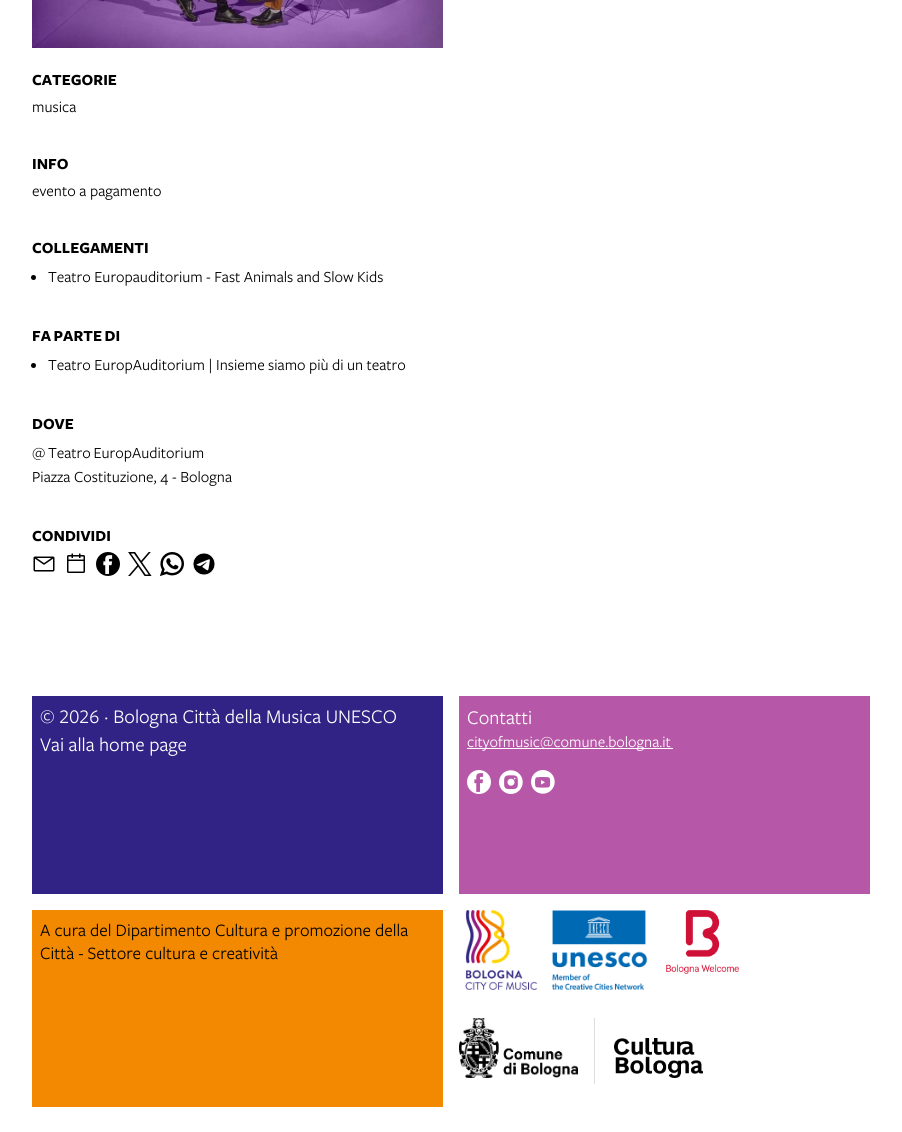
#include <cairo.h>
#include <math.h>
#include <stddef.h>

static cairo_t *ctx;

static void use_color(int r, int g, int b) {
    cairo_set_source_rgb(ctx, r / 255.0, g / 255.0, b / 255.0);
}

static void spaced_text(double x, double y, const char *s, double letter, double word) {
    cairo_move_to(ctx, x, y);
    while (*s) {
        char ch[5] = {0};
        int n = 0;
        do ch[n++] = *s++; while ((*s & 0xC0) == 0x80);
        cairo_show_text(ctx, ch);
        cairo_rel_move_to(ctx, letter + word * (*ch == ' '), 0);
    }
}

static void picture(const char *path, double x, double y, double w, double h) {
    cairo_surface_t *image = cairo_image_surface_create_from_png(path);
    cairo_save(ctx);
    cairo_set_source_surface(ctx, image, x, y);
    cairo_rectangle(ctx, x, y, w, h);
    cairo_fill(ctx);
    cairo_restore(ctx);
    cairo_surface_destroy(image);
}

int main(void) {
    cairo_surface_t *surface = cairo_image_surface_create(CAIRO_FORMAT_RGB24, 902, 1132);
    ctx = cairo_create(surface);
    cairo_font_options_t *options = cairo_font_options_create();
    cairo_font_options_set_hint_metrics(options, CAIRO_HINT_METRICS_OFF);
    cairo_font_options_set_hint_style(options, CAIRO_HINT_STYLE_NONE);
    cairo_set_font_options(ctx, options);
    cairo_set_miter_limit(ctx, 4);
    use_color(255, 255, 255);
    cairo_paint(ctx);
    picture("img1.png", 32, 0, 411, 48);
    cairo_select_font_face(ctx, "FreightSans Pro", CAIRO_FONT_SLANT_NORMAL, CAIRO_FONT_WEIGHT_BOLD);
    cairo_set_font_size(ctx, 16);
    use_color(0, 0, 0);
    cairo_move_to(ctx, 32, 85);
    cairo_show_text(ctx, "CATEGORIE");
    cairo_select_font_face(ctx, "FreightSans Pro", CAIRO_FONT_SLANT_NORMAL, CAIRO_FONT_WEIGHT_NORMAL);
    cairo_move_to(ctx, 32, 112);
    cairo_show_text(ctx, "musica");
    cairo_select_font_face(ctx, "FreightSans Pro", CAIRO_FONT_SLANT_NORMAL, CAIRO_FONT_WEIGHT_BOLD);
    cairo_move_to(ctx, 32, 169);
    cairo_show_text(ctx, "INFO");
    cairo_select_font_face(ctx, "FreightSans Pro", CAIRO_FONT_SLANT_NORMAL, CAIRO_FONT_WEIGHT_NORMAL);
    cairo_move_to(ctx, 32, 196);
    cairo_show_text(ctx, "evento a pagamento");
    cairo_select_font_face(ctx, "FreightSans Pro", CAIRO_FONT_SLANT_NORMAL, CAIRO_FONT_WEIGHT_BOLD);
    cairo_move_to(ctx, 32, 253);
    cairo_show_text(ctx, "COLLEGAMENTI");
    cairo_new_path(ctx);
    cairo_arc(ctx, 33.5, 277.5, 2.5, 0, 2 * M_PI);
    cairo_fill(ctx);
    cairo_select_font_face(ctx, "FreightSans Pro", CAIRO_FONT_SLANT_NORMAL, CAIRO_FONT_WEIGHT_NORMAL);
    spaced_text(48, 282, "Teatro Europauditorium - Fast Animals and Slow Kids", 0, -0.25);
    cairo_select_font_face(ctx, "FreightSans Pro", CAIRO_FONT_SLANT_NORMAL, CAIRO_FONT_WEIGHT_BOLD);
    spaced_text(32, 341, "FA PARTE DI", 0, -1);
    cairo_new_path(ctx);
    cairo_arc(ctx, 33.5, 365.5, 2.5, 0, 2 * M_PI);
    cairo_fill(ctx);
    cairo_select_font_face(ctx, "FreightSans Pro", CAIRO_FONT_SLANT_NORMAL, CAIRO_FONT_WEIGHT_NORMAL);
    spaced_text(48, 370, "Teatro EuropAuditorium | Insieme siamo più di un teatro", 0, -0.25);
    cairo_select_font_face(ctx, "FreightSans Pro", CAIRO_FONT_SLANT_NORMAL, CAIRO_FONT_WEIGHT_BOLD);
    cairo_move_to(ctx, 32, 429);
    cairo_show_text(ctx, "DOVE");
    cairo_select_font_face(ctx, "FreightSans Pro", CAIRO_FONT_SLANT_NORMAL, CAIRO_FONT_WEIGHT_NORMAL);
    spaced_text(32, 458, "@ Teatro EuropAuditorium", 0, -1);
    cairo_move_to(ctx, 32, 482);
    cairo_show_text(ctx, "Piazza Costituzione, 4 - Bologna");
    cairo_select_font_face(ctx, "FreightSans Pro", CAIRO_FONT_SLANT_NORMAL, CAIRO_FONT_WEIGHT_BOLD);
    cairo_move_to(ctx, 32, 541);
    cairo_show_text(ctx, "CONDIVIDI");
    picture("img2.png", 33, 556, 22, 16);
    picture("img3.png", 67, 553, 18, 20);
    picture("img4.png", 96, 552, 24, 24);
    picture("img5.png", 128, 552, 24, 24);
    picture("img6.png", 160, 552, 24, 24);
    picture("img7.png", 193, 553, 22, 22);
    use_color(49, 35, 133);
    cairo_rectangle(ctx, 32, 696, 411, 198);
    cairo_fill(ctx);
    cairo_select_font_face(ctx, "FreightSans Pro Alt", CAIRO_FONT_SLANT_NORMAL, CAIRO_FONT_WEIGHT_NORMAL);
    cairo_set_font_size(ctx, 20);
    use_color(255, 255, 255);
    cairo_move_to(ctx, 40, 723);
    cairo_show_text(ctx, "© 2026 · Bologna Città della Musica UNESCO");
    cairo_select_font_face(ctx, "FreightSans Pro", CAIRO_FONT_SLANT_NORMAL, CAIRO_FONT_WEIGHT_NORMAL);
    cairo_move_to(ctx, 40, 751);
    cairo_show_text(ctx, "Vai alla home page");
    use_color(182, 88, 167);
    cairo_rectangle(ctx, 459, 696, 411, 198);
    cairo_fill(ctx);
    use_color(255, 255, 255);
    cairo_move_to(ctx, 467, 724);
    cairo_show_text(ctx, "Contatti");
    cairo_rectangle(ctx, 467, 748, 206, 1);
    cairo_fill(ctx);
    cairo_set_font_size(ctx, 16);
    cairo_move_to(ctx, 467, 747);
    cairo_show_text(ctx, "cityofmusic@comune.bologna.it");
    picture("img8.png", 467, 770, 24, 24);
    picture("img9.png", 499, 770, 24, 24);
    picture("img10.png", 531, 770, 24, 24);
    use_color(243, 137, 0);
    cairo_rectangle(ctx, 32, 910, 411, 197);
    cairo_fill(ctx);
    cairo_set_font_size(ctx, 18);
    use_color(0, 0, 0);
    cairo_move_to(ctx, 40, 936);
    cairo_show_text(ctx, "A cura del Dipartimento Cultura e promozione della");
    cairo_move_to(ctx, 40, 959);
    cairo_show_text(ctx, "Città - Settore cultura e creatività");
    picture("img11.png", 465, 910, 183, 80);
    picture("img12.png", 666, 910, 73, 64);
    use_color(222, 222, 222);
    cairo_rectangle(ctx, 594, 1018, 1, 66);
    cairo_fill(ctx);
    picture("img13.png", 459, 1018, 119, 60);
    picture("img14.png", 614, 1038, 89, 40);
    cairo_surface_write_to_png(surface, "result.png");
    cairo_font_options_destroy(options);
    cairo_destroy(ctx);
    cairo_surface_destroy(surface);
    return 0;
}
